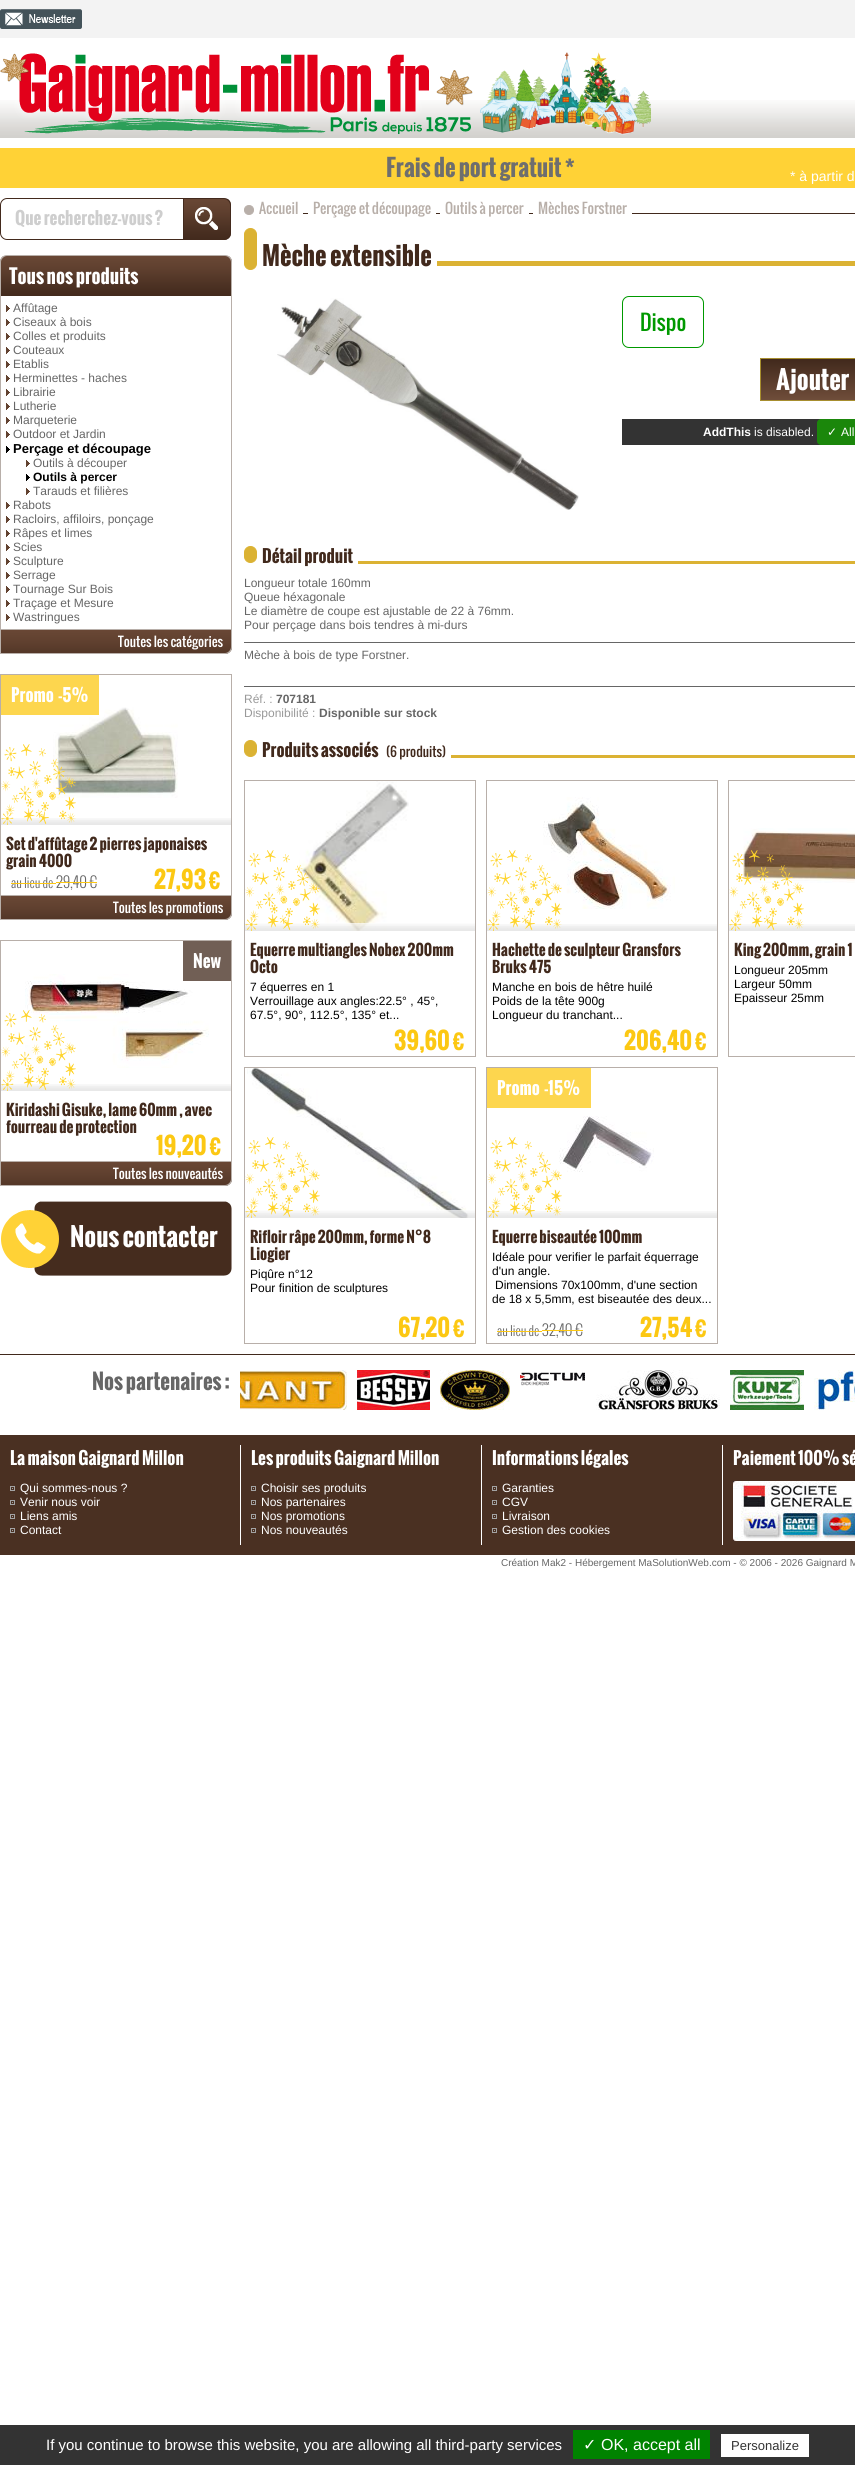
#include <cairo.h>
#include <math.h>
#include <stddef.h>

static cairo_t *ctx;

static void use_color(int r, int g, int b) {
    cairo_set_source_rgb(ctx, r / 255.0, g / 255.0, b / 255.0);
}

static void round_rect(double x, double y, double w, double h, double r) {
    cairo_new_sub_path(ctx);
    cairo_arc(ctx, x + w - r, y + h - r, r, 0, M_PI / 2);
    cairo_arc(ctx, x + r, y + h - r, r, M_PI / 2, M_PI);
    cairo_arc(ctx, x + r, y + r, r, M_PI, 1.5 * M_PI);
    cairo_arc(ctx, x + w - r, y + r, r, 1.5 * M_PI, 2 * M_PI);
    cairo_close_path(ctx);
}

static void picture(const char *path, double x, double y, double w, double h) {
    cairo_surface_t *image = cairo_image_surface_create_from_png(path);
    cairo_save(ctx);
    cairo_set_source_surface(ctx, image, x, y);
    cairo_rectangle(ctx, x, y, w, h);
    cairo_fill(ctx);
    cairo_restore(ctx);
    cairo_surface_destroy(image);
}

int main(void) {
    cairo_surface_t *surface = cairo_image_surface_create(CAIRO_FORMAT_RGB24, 855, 2465);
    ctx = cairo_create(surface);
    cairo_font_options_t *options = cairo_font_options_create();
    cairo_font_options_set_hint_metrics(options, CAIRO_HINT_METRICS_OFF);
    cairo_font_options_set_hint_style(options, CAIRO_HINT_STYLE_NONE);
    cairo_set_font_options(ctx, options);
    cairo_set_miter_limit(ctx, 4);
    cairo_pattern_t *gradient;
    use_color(255, 255, 255);
    cairo_paint(ctx);
    use_color(243, 243, 243);
    cairo_rectangle(ctx, 0, 0, 855, 38);
    cairo_fill(ctx);
    picture("img1.png", 0, 9, 82, 20);
    picture("img2.png", 0, 100, 855, 38);
    picture("img3.png", 0, 52, 651, 83);
    use_color(255, 210, 54);
    cairo_rectangle(ctx, 0, 148, 855, 40);
    cairo_fill(ctx);
    cairo_select_font_face(ctx, "Oswald", CAIRO_FONT_SLANT_NORMAL, CAIRO_FONT_WEIGHT_BOLD);
    cairo_set_font_size(ctx, 23);
    use_color(110, 110, 110);
    cairo_move_to(ctx, 386, 177);
    cairo_show_text(ctx, "Frais de port gratuit *");
    cairo_select_font_face(ctx, "Liberation Sans", CAIRO_FONT_SLANT_NORMAL, CAIRO_FONT_WEIGHT_NORMAL);
    cairo_set_font_size(ctx, 14);
    use_color(255, 255, 255);
    cairo_move_to(ctx, 790, 181);
    cairo_show_text(ctx, "* à partir d");
    cairo_new_path(ctx);
    cairo_move_to(ctx, 7, 198.5);
    cairo_line_to(ctx, 183.5, 198.5);
    cairo_line_to(ctx, 183.5, 239.5);
    cairo_line_to(ctx, 7, 239.5);
    cairo_curve_to(ctx, 3.5, 239.5, 0.5, 236.5, 0.5, 233);
    cairo_line_to(ctx, 0.5, 205);
    cairo_curve_to(ctx, 0.5, 201.5, 3.5, 198.5, 7, 198.5);
    cairo_close_path(ctx);
    use_color(67, 42, 29);
    cairo_set_line_width(ctx, 1);
    cairo_stroke(ctx);
    cairo_select_font_face(ctx, "Oswald", CAIRO_FONT_SLANT_NORMAL, CAIRO_FONT_WEIGHT_BOLD);
    cairo_set_font_size(ctx, 17);
    use_color(206, 206, 206);
    cairo_move_to(ctx, 15, 225);
    cairo_show_text(ctx, "Que recherchez-vous ?");
    picture("img4.png", 184, 199, 47, 41);
    use_color(67, 42, 29);
    cairo_set_fill_rule(ctx, CAIRO_FILL_RULE_EVEN_ODD);
    cairo_new_path(ctx);
    cairo_move_to(ctx, 184, 198);
    cairo_line_to(ctx, 224, 198);
    cairo_curve_to(ctx, 228, 198, 231, 201, 231, 205);
    cairo_line_to(ctx, 231, 233);
    cairo_curve_to(ctx, 231, 237, 228, 240, 224, 240);
    cairo_line_to(ctx, 184, 240);
    cairo_close_path(ctx);
    cairo_move_to(ctx, 184, 199);
    cairo_line_to(ctx, 224, 199);
    cairo_curve_to(ctx, 227, 199, 230, 202, 230, 205);
    cairo_line_to(ctx, 230, 233);
    cairo_curve_to(ctx, 230, 236, 227, 239, 224, 239);
    cairo_line_to(ctx, 184, 239);
    cairo_close_path(ctx);
    cairo_fill(ctx);
    picture("img5.png", 195, 207, 23, 23);
    picture("img6.png", 0, 256, 232, 40);
    use_color(184, 175, 169);
    cairo_new_path(ctx);
    cairo_move_to(ctx, 7, 255);
    cairo_line_to(ctx, 225, 255);
    cairo_curve_to(ctx, 229, 255, 232, 258, 232, 262);
    cairo_line_to(ctx, 232, 296);
    cairo_line_to(ctx, 0, 296);
    cairo_line_to(ctx, 0, 262);
    cairo_curve_to(ctx, 0, 258, 3, 255, 7, 255);
    cairo_close_path(ctx);
    cairo_move_to(ctx, 7, 256);
    cairo_line_to(ctx, 225, 256);
    cairo_curve_to(ctx, 228, 256, 231, 259, 231, 262);
    cairo_line_to(ctx, 231, 296);
    cairo_line_to(ctx, 1, 296);
    cairo_line_to(ctx, 1, 262);
    cairo_curve_to(ctx, 1, 259, 4, 256, 7, 256);
    cairo_close_path(ctx);
    cairo_fill(ctx);
    cairo_set_font_size(ctx, 19);
    use_color(255, 255, 255);
    cairo_move_to(ctx, 9, 284);
    cairo_show_text(ctx, "Tous nos produits");
    use_color(184, 175, 169);
    cairo_rectangle(ctx, 231, 296, 1, 334);
    cairo_fill(ctx);
    cairo_rectangle(ctx, 0, 629, 232, 1);
    cairo_fill(ctx);
    cairo_rectangle(ctx, 0, 296, 1, 334);
    cairo_fill(ctx);
    picture("img7.png", 6, 305, 4, 7);
    cairo_select_font_face(ctx, "Liberation Sans", CAIRO_FONT_SLANT_NORMAL, CAIRO_FONT_WEIGHT_NORMAL);
    cairo_set_font_size(ctx, 12);
    use_color(102, 102, 102);
    cairo_move_to(ctx, 13, 312);
    cairo_show_text(ctx, "Affûtage");
    picture("img7.png", 6, 319, 4, 7);
    cairo_move_to(ctx, 13, 326);
    cairo_show_text(ctx, "Ciseaux à bois");
    picture("img7.png", 6, 333, 4, 7);
    cairo_move_to(ctx, 13, 340);
    cairo_show_text(ctx, "Colles et produits");
    picture("img7.png", 6, 347, 4, 7);
    cairo_move_to(ctx, 13, 354);
    cairo_show_text(ctx, "Couteaux");
    picture("img7.png", 6, 361, 4, 7);
    cairo_move_to(ctx, 13, 368);
    cairo_show_text(ctx, "Etablis");
    picture("img7.png", 6, 375, 4, 7);
    cairo_move_to(ctx, 13, 382);
    cairo_show_text(ctx, "Herminettes - haches");
    picture("img7.png", 6, 389, 4, 7);
    cairo_move_to(ctx, 13, 396);
    cairo_show_text(ctx, "Librairie");
    picture("img7.png", 6, 403, 4, 7);
    cairo_move_to(ctx, 13, 410);
    cairo_show_text(ctx, "Lutherie");
    picture("img7.png", 6, 417, 4, 7);
    cairo_move_to(ctx, 13, 424);
    cairo_show_text(ctx, "Marqueterie");
    picture("img7.png", 6, 431, 4, 7);
    cairo_move_to(ctx, 13, 438);
    cairo_show_text(ctx, "Outdoor et Jardin");
    picture("img8.png", 6, 446, 4, 7);
    cairo_select_font_face(ctx, "Liberation Sans", CAIRO_FONT_SLANT_NORMAL, CAIRO_FONT_WEIGHT_BOLD);
    cairo_set_font_size(ctx, 13);
    use_color(0, 0, 0);
    cairo_move_to(ctx, 13, 453);
    cairo_show_text(ctx, "Perçage et découpage");
    picture("img7.png", 26, 460, 4, 7);
    cairo_select_font_face(ctx, "Liberation Sans", CAIRO_FONT_SLANT_NORMAL, CAIRO_FONT_WEIGHT_NORMAL);
    cairo_set_font_size(ctx, 12);
    use_color(102, 102, 102);
    cairo_move_to(ctx, 33, 467);
    cairo_show_text(ctx, "Outils à découper");
    picture("img8.png", 26, 474, 4, 7);
    cairo_select_font_face(ctx, "Liberation Sans", CAIRO_FONT_SLANT_NORMAL, CAIRO_FONT_WEIGHT_BOLD);
    use_color(0, 0, 0);
    cairo_move_to(ctx, 33, 481);
    cairo_show_text(ctx, "Outils à percer");
    picture("img7.png", 26, 488, 4, 7);
    cairo_select_font_face(ctx, "Liberation Sans", CAIRO_FONT_SLANT_NORMAL, CAIRO_FONT_WEIGHT_NORMAL);
    use_color(102, 102, 102);
    cairo_move_to(ctx, 33, 495);
    cairo_show_text(ctx, "Tarauds et filières");
    picture("img7.png", 6, 502, 4, 7);
    cairo_move_to(ctx, 13, 509);
    cairo_show_text(ctx, "Rabots");
    picture("img7.png", 6, 516, 4, 7);
    cairo_move_to(ctx, 13, 523);
    cairo_show_text(ctx, "Racloirs, affiloirs, ponçage");
    picture("img7.png", 6, 530, 4, 7);
    cairo_move_to(ctx, 13, 537);
    cairo_show_text(ctx, "Râpes et limes");
    picture("img7.png", 6, 544, 4, 7);
    cairo_move_to(ctx, 13, 551);
    cairo_show_text(ctx, "Scies");
    picture("img7.png", 6, 558, 4, 7);
    cairo_move_to(ctx, 13, 565);
    cairo_show_text(ctx, "Sculpture");
    picture("img7.png", 6, 572, 4, 7);
    cairo_move_to(ctx, 13, 579);
    cairo_show_text(ctx, "Serrage");
    picture("img7.png", 6, 586, 4, 7);
    cairo_move_to(ctx, 13, 593);
    cairo_show_text(ctx, "Tournage Sur Bois");
    picture("img7.png", 6, 600, 4, 7);
    cairo_move_to(ctx, 13, 607);
    cairo_show_text(ctx, "Traçage et Mesure");
    picture("img7.png", 6, 614, 4, 7);
    cairo_move_to(ctx, 13, 621);
    cairo_show_text(ctx, "Wastringues");
    picture("img9.png", 1, 630, 231, 24);
    use_color(184, 175, 169);
    cairo_new_path(ctx);
    cairo_move_to(ctx, 0, 630);
    cairo_line_to(ctx, 232, 630);
    cairo_line_to(ctx, 232, 647);
    cairo_curve_to(ctx, 232, 651, 229, 654, 225, 654);
    cairo_line_to(ctx, 0, 654);
    cairo_close_path(ctx);
    cairo_move_to(ctx, 1, 630);
    cairo_line_to(ctx, 231, 630);
    cairo_line_to(ctx, 231, 647);
    cairo_curve_to(ctx, 231, 650, 228, 653, 225, 653);
    cairo_line_to(ctx, 1, 653);
    cairo_close_path(ctx);
    cairo_fill(ctx);
    cairo_select_font_face(ctx, "Oswald", CAIRO_FONT_SLANT_NORMAL, CAIRO_FONT_WEIGHT_NORMAL);
    cairo_set_font_size(ctx, 13);
    use_color(255, 255, 255);
    cairo_move_to(ctx, 118, 647);
    cairo_show_text(ctx, "Toutes les catégories");
    cairo_rectangle(ctx, 0.5, 674.5, 231, 221);
    use_color(184, 175, 169);
    cairo_stroke(ctx);
    picture("img11.png", 53, 707, 125, 91);
    use_color(253, 214, 78);
    cairo_rectangle(ctx, 1, 675, 98, 40);
    cairo_fill(ctx);
    cairo_select_font_face(ctx, "Oswald", CAIRO_FONT_SLANT_NORMAL, CAIRO_FONT_WEIGHT_BOLD);
    cairo_set_font_size(ctx, 17);
    use_color(255, 255, 255);
    cairo_move_to(ctx, 11, 702);
    cairo_show_text(ctx, "Promo  -5%");
    picture("img12.png", 1, 818, 230, 7);
    picture("img10.png", 1, 744, 75, 81);
    cairo_set_font_size(ctx, 15);
    use_color(65, 41, 28);
    cairo_move_to(ctx, 6, 850);
    cairo_show_text(ctx, "Set d'affûtage 2 pierres japonaises");
    cairo_move_to(ctx, 6, 867);
    cairo_show_text(ctx, "grain 4000");
    cairo_select_font_face(ctx, "Oswald Light", CAIRO_FONT_SLANT_NORMAL, CAIRO_FONT_WEIGHT_NORMAL);
    cairo_set_font_size(ctx, 13);
    use_color(102, 102, 102);
    cairo_move_to(ctx, 11, 888);
    cairo_show_text(ctx, "au lieu de");
    use_color(252, 200, 19);
    cairo_rectangle(ctx, 11, 883, 45, 1);
    cairo_fill(ctx);
    cairo_set_font_size(ctx, 15);
    use_color(102, 102, 102);
    cairo_move_to(ctx, 56, 888);
    cairo_show_text(ctx, "29,40 €");
    use_color(252, 200, 19);
    cairo_rectangle(ctx, 56, 882, 41, 1);
    cairo_fill(ctx);
    cairo_select_font_face(ctx, "Oswald", CAIRO_FONT_SLANT_NORMAL, CAIRO_FONT_WEIGHT_BOLD);
    cairo_set_font_size(ctx, 23);
    cairo_move_to(ctx, 154, 889);
    cairo_show_text(ctx, "27,93 €");
    picture("img9.png", 1, 896, 231, 24);
    use_color(184, 175, 169);
    cairo_new_path(ctx);
    cairo_move_to(ctx, 0, 896);
    cairo_line_to(ctx, 232, 896);
    cairo_line_to(ctx, 232, 913);
    cairo_curve_to(ctx, 232, 917, 229, 920, 225, 920);
    cairo_line_to(ctx, 0, 920);
    cairo_close_path(ctx);
    cairo_move_to(ctx, 1, 896);
    cairo_line_to(ctx, 231, 896);
    cairo_line_to(ctx, 231, 913);
    cairo_curve_to(ctx, 231, 916, 228, 919, 225, 919);
    cairo_line_to(ctx, 1, 919);
    cairo_close_path(ctx);
    cairo_fill(ctx);
    cairo_select_font_face(ctx, "Oswald", CAIRO_FONT_SLANT_NORMAL, CAIRO_FONT_WEIGHT_NORMAL);
    cairo_set_font_size(ctx, 13);
    use_color(255, 255, 255);
    cairo_move_to(ctx, 113, 913);
    cairo_show_text(ctx, "Toutes les promotions");
    cairo_rectangle(ctx, 0.5, 940.5, 231, 221);
    use_color(184, 175, 169);
    cairo_stroke(ctx);
    picture("img13.png", 25, 974, 184, 94);
    use_color(113, 95, 85);
    cairo_rectangle(ctx, 183, 941, 48, 40);
    cairo_fill(ctx);
    cairo_select_font_face(ctx, "Oswald", CAIRO_FONT_SLANT_NORMAL, CAIRO_FONT_WEIGHT_BOLD);
    cairo_set_font_size(ctx, 17);
    use_color(255, 255, 255);
    cairo_move_to(ctx, 193, 968);
    cairo_show_text(ctx, "New");
    picture("img12.png", 1, 1084, 230, 7);
    picture("img14.png", 1, 1010, 75, 81);
    cairo_set_font_size(ctx, 15);
    use_color(65, 41, 28);
    cairo_move_to(ctx, 6, 1116);
    cairo_show_text(ctx, "Kiridashi Gisuke, lame 60mm , avec");
    cairo_move_to(ctx, 6, 1133);
    cairo_show_text(ctx, "fourreau de protection");
    cairo_set_font_size(ctx, 23);
    use_color(252, 200, 19);
    cairo_move_to(ctx, 156, 1155);
    cairo_show_text(ctx, "19,20 €");
    picture("img9.png", 1, 1162, 231, 24);
    use_color(184, 175, 169);
    cairo_new_path(ctx);
    cairo_move_to(ctx, 0, 1162);
    cairo_line_to(ctx, 232, 1162);
    cairo_line_to(ctx, 232, 1179);
    cairo_curve_to(ctx, 232, 1183, 229, 1186, 225, 1186);
    cairo_line_to(ctx, 0, 1186);
    cairo_close_path(ctx);
    cairo_move_to(ctx, 1, 1162);
    cairo_line_to(ctx, 231, 1162);
    cairo_line_to(ctx, 231, 1179);
    cairo_curve_to(ctx, 231, 1182, 228, 1185, 225, 1185);
    cairo_line_to(ctx, 1, 1185);
    cairo_close_path(ctx);
    cairo_fill(ctx);
    cairo_select_font_face(ctx, "Oswald", CAIRO_FONT_SLANT_NORMAL, CAIRO_FONT_WEIGHT_NORMAL);
    cairo_set_font_size(ctx, 13);
    use_color(255, 255, 255);
    cairo_move_to(ctx, 113, 1179);
    cairo_show_text(ctx, "Toutes les nouveautés");
    picture("img15.png", 1, 1201, 231, 75);
    cairo_select_font_face(ctx, "Oswald", CAIRO_FONT_SLANT_NORMAL, CAIRO_FONT_WEIGHT_BOLD);
    cairo_set_font_size(ctx, 25);
    cairo_move_to(ctx, 70, 1247);
    cairo_show_text(ctx, "Nous contacter");
    use_color(184, 175, 169);
    cairo_new_path(ctx);
    cairo_arc(ctx, 249, 210, 4.5, 0, 2 * M_PI);
    cairo_fill_preserve(ctx);
    cairo_stroke(ctx);
    use_color(65, 41, 28);
    cairo_rectangle(ctx, 303, 213, 552, 1);
    cairo_fill(ctx);
    cairo_select_font_face(ctx, "Oswald", CAIRO_FONT_SLANT_NORMAL, CAIRO_FONT_WEIGHT_NORMAL);
    cairo_set_font_size(ctx, 14);
    use_color(184, 175, 169);
    cairo_move_to(ctx, 259, 214);
    cairo_show_text(ctx, "Accueil");
    use_color(255, 255, 255);
    cairo_rectangle(ctx, 308, 213, 128, 1);
    cairo_fill(ctx);
    use_color(184, 175, 169);
    cairo_move_to(ctx, 313, 214);
    cairo_show_text(ctx, "Perçage et découpage");
    use_color(255, 255, 255);
    cairo_rectangle(ctx, 440, 213, 89, 1);
    cairo_fill(ctx);
    use_color(184, 175, 169);
    cairo_move_to(ctx, 445, 214);
    cairo_show_text(ctx, "Outils à percer");
    use_color(255, 255, 255);
    cairo_rectangle(ctx, 533, 213, 99, 1);
    cairo_fill(ctx);
    use_color(184, 175, 169);
    cairo_move_to(ctx, 538, 214);
    cairo_show_text(ctx, "Mèches Forstner");
    use_color(219, 178, 51);
    round_rect(244.5, 228.5, 12, 41, 6);
    cairo_fill_preserve(ctx);
    cairo_stroke(ctx);
    cairo_rectangle(ctx, 437, 261, 418, 5);
    cairo_fill(ctx);
    cairo_select_font_face(ctx, "Oswald", CAIRO_FONT_SLANT_NORMAL, CAIRO_FONT_WEIGHT_BOLD);
    cairo_set_font_size(ctx, 25);
    use_color(65, 41, 28);
    cairo_move_to(ctx, 262, 266);
    cairo_show_text(ctx, "Mèche extensible");
    picture("img16.png", 277, 298, 302, 212);
    round_rect(622.5, 296.5, 81, 51, 6.5);
    use_color(0, 153, 0);
    cairo_stroke(ctx);
    cairo_select_font_face(ctx, "Oswald", CAIRO_FONT_SLANT_NORMAL, CAIRO_FONT_WEIGHT_NORMAL);
    cairo_set_font_size(ctx, 21);
    cairo_move_to(ctx, 640, 331);
    cairo_show_text(ctx, "Dispo");
    gradient = cairo_pattern_create_linear(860, 359, 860, 400);
    cairo_pattern_add_color_stop_rgba(gradient, 0, 0.255, 0.161, 0.11, 1);
    cairo_pattern_add_color_stop_rgba(gradient, 1, 0.435, 0.302, 0.227, 1);
    cairo_set_source(ctx, gradient);
    cairo_pattern_destroy(gradient);
    cairo_rectangle(ctx, 761, 359, 94, 41);
    cairo_fill(ctx);
    cairo_rectangle(ctx, 760.5, 358.5, 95, 42);
    use_color(167, 142, 46);
    cairo_stroke(ctx);
    cairo_select_font_face(ctx, "Oswald", CAIRO_FONT_SLANT_NORMAL, CAIRO_FONT_WEIGHT_BOLD);
    cairo_set_font_size(ctx, 25);
    use_color(255, 255, 255);
    cairo_move_to(ctx, 776, 390);
    cairo_show_text(ctx, "Ajouter");
    use_color(51, 51, 51);
    cairo_rectangle(ctx, 622, 419, 199, 26);
    cairo_fill(ctx);
    cairo_select_font_face(ctx, "Liberation Sans", CAIRO_FONT_SLANT_NORMAL, CAIRO_FONT_WEIGHT_BOLD);
    cairo_set_font_size(ctx, 12);
    use_color(255, 255, 255);
    cairo_move_to(ctx, 703, 436);
    cairo_show_text(ctx, "AddThis");
    cairo_select_font_face(ctx, "Liberation Sans", CAIRO_FONT_SLANT_NORMAL, CAIRO_FONT_WEIGHT_NORMAL);
    cairo_move_to(ctx, 754, 436);
    cairo_show_text(ctx, "is disabled.");
    use_color(27, 135, 11);
    round_rect(817, 419, 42, 26, 4);
    cairo_fill(ctx);
    cairo_select_font_face(ctx, "DejaVu Sans", CAIRO_FONT_SLANT_NORMAL, CAIRO_FONT_WEIGHT_NORMAL);
    use_color(255, 255, 255);
    cairo_move_to(ctx, 827, 436);
    cairo_show_text(ctx, "✓");
    cairo_select_font_face(ctx, "Liberation Sans", CAIRO_FONT_SLANT_NORMAL, CAIRO_FONT_WEIGHT_NORMAL);
    cairo_move_to(ctx, 841, 436);
    cairo_show_text(ctx, "All");
    use_color(219, 178, 51);
    round_rect(244.5, 546.5, 12, 16, 6);
    cairo_fill_preserve(ctx);
    cairo_stroke(ctx);
    cairo_rectangle(ctx, 358, 561, 497, 3);
    cairo_fill(ctx);
    cairo_select_font_face(ctx, "Oswald", CAIRO_FONT_SLANT_NORMAL, CAIRO_FONT_WEIGHT_BOLD);
    cairo_set_font_size(ctx, 17);
    use_color(65, 41, 28);
    cairo_move_to(ctx, 262, 563);
    cairo_show_text(ctx, "Détail produit");
    cairo_select_font_face(ctx, "Liberation Sans", CAIRO_FONT_SLANT_NORMAL, CAIRO_FONT_WEIGHT_NORMAL);
    cairo_set_font_size(ctx, 12);
    use_color(102, 102, 102);
    cairo_move_to(ctx, 244, 587);
    cairo_show_text(ctx, "Longueur totale 160mm");
    cairo_move_to(ctx, 244, 601);
    cairo_show_text(ctx, "Queue héxagonale");
    cairo_move_to(ctx, 244, 615);
    cairo_show_text(ctx, "Le diamètre de coupe est ajustable de 22 à 76mm.");
    cairo_move_to(ctx, 244, 629);
    cairo_show_text(ctx, "Pour perçage dans bois tendres à mi-durs");
    cairo_rectangle(ctx, 244, 642, 611, 1);
    cairo_fill(ctx);
    cairo_move_to(ctx, 244, 659);
    cairo_show_text(ctx, "Mèche à bois de type Forstner.");
    cairo_rectangle(ctx, 244, 686, 611, 1);
    cairo_fill(ctx);
    use_color(153, 153, 153);
    cairo_move_to(ctx, 244, 703);
    cairo_show_text(ctx, "Réf. :");
    cairo_select_font_face(ctx, "Liberation Sans", CAIRO_FONT_SLANT_NORMAL, CAIRO_FONT_WEIGHT_BOLD);
    use_color(102, 102, 102);
    cairo_move_to(ctx, 276, 703);
    cairo_show_text(ctx, "707181");
    cairo_select_font_face(ctx, "Liberation Sans", CAIRO_FONT_SLANT_NORMAL, CAIRO_FONT_WEIGHT_NORMAL);
    use_color(153, 153, 153);
    cairo_move_to(ctx, 244, 717);
    cairo_show_text(ctx, "Disponibilité :");
    cairo_select_font_face(ctx, "Liberation Sans", CAIRO_FONT_SLANT_NORMAL, CAIRO_FONT_WEIGHT_BOLD);
    use_color(102, 102, 102);
    cairo_move_to(ctx, 319, 717);
    cairo_show_text(ctx, "Disponible sur stock");
    use_color(219, 178, 51);
    round_rect(244.5, 740.5, 12, 16, 6);
    cairo_fill_preserve(ctx);
    cairo_stroke(ctx);
    cairo_rectangle(ctx, 451, 755, 404, 3);
    cairo_fill(ctx);
    cairo_select_font_face(ctx, "Oswald", CAIRO_FONT_SLANT_NORMAL, CAIRO_FONT_WEIGHT_BOLD);
    cairo_set_font_size(ctx, 17);
    use_color(65, 41, 28);
    cairo_move_to(ctx, 262, 757);
    cairo_show_text(ctx, "Produits associés");
    cairo_select_font_face(ctx, "Oswald", CAIRO_FONT_SLANT_NORMAL, CAIRO_FONT_WEIGHT_NORMAL);
    cairo_set_font_size(ctx, 13);
    cairo_move_to(ctx, 386, 757);
    cairo_show_text(ctx, "(6 produits)");
    cairo_rectangle(ctx, 244.5, 780.5, 231, 276);
    use_color(184, 175, 169);
    cairo_stroke(ctx);
    picture("img18.png", 299, 781, 110, 150);
    picture("img19.png", 245, 923, 230, 8);
    picture("img17.png", 245, 850, 75, 81);
    cairo_select_font_face(ctx, "Oswald", CAIRO_FONT_SLANT_NORMAL, CAIRO_FONT_WEIGHT_BOLD);
    cairo_set_font_size(ctx, 15);
    use_color(65, 41, 28);
    cairo_move_to(ctx, 250, 956);
    cairo_show_text(ctx, "Equerre multiangles Nobex 200mm");
    cairo_move_to(ctx, 250, 973);
    cairo_show_text(ctx, "Octo");
    cairo_select_font_face(ctx, "Liberation Sans", CAIRO_FONT_SLANT_NORMAL, CAIRO_FONT_WEIGHT_NORMAL);
    cairo_set_font_size(ctx, 12);
    use_color(0, 0, 0);
    cairo_move_to(ctx, 250, 991);
    cairo_show_text(ctx, "7 équerres en 1");
    cairo_move_to(ctx, 250, 1005);
    cairo_show_text(ctx, "Verrouillage aux angles:22.5° , 45°,");
    cairo_move_to(ctx, 250, 1019);
    cairo_show_text(ctx, "67.5°, 90°, 112.5°, 135° et...");
    cairo_select_font_face(ctx, "Oswald", CAIRO_FONT_SLANT_NORMAL, CAIRO_FONT_WEIGHT_BOLD);
    cairo_set_font_size(ctx, 23);
    use_color(252, 200, 19);
    cairo_move_to(ctx, 394, 1050);
    cairo_show_text(ctx, "39,60 €");
    cairo_rectangle(ctx, 486.5, 780.5, 231, 276);
    use_color(184, 175, 169);
    cairo_stroke(ctx);
    picture("img21.png", 543, 797, 132, 112);
    picture("img12.png", 487, 924, 230, 7);
    picture("img20.png", 487, 850, 75, 81);
    cairo_set_font_size(ctx, 15);
    use_color(65, 41, 28);
    cairo_move_to(ctx, 492, 956);
    cairo_show_text(ctx, "Hachette de sculpteur Gransfors");
    cairo_move_to(ctx, 492, 973);
    cairo_show_text(ctx, "Bruks 475");
    cairo_select_font_face(ctx, "Liberation Sans", CAIRO_FONT_SLANT_NORMAL, CAIRO_FONT_WEIGHT_NORMAL);
    cairo_set_font_size(ctx, 12);
    use_color(0, 0, 0);
    cairo_move_to(ctx, 492, 991);
    cairo_show_text(ctx, "Manche en bois de hêtre huilé");
    cairo_move_to(ctx, 492, 1005);
    cairo_show_text(ctx, "Poids de la tête 900g");
    cairo_move_to(ctx, 492, 1019);
    cairo_show_text(ctx, "Longueur du tranchant...");
    cairo_select_font_face(ctx, "Oswald", CAIRO_FONT_SLANT_NORMAL, CAIRO_FONT_WEIGHT_BOLD);
    cairo_set_font_size(ctx, 23);
    use_color(252, 200, 19);
    cairo_move_to(ctx, 624, 1050);
    cairo_show_text(ctx, "206,40 €");
    cairo_rectangle(ctx, 728.5, 780.5, 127, 276);
    use_color(184, 175, 169);
    cairo_stroke(ctx);
    picture("img22.png", 743, 828, 112, 55);
    picture("img24.png", 729, 924, 126, 7);
    picture("img23.png", 729, 850, 75, 81);
    cairo_set_font_size(ctx, 15);
    use_color(65, 41, 28);
    cairo_move_to(ctx, 734, 956);
    cairo_show_text(ctx, "King 200mm, grain 1");
    cairo_select_font_face(ctx, "Liberation Sans", CAIRO_FONT_SLANT_NORMAL, CAIRO_FONT_WEIGHT_NORMAL);
    cairo_set_font_size(ctx, 12);
    use_color(0, 0, 0);
    cairo_move_to(ctx, 734, 974);
    cairo_show_text(ctx, "Longueur 205mm");
    cairo_move_to(ctx, 734, 988);
    cairo_show_text(ctx, "Largeur 50mm");
    cairo_move_to(ctx, 734, 1002);
    cairo_show_text(ctx, "Epaisseur 25mm");
    cairo_rectangle(ctx, 244.5, 1067.5, 231, 276);
    use_color(184, 175, 169);
    cairo_stroke(ctx);
    picture("img25.png", 247, 1068, 222, 150);
    picture("img27.png", 245, 1210, 230, 8);
    picture("img26.png", 245, 1137, 75, 81);
    cairo_select_font_face(ctx, "Oswald", CAIRO_FONT_SLANT_NORMAL, CAIRO_FONT_WEIGHT_BOLD);
    cairo_set_font_size(ctx, 15);
    use_color(65, 41, 28);
    cairo_move_to(ctx, 250, 1243);
    cairo_show_text(ctx, "Rifloir râpe 200mm, forme N°8");
    cairo_move_to(ctx, 250, 1260);
    cairo_show_text(ctx, "Liogier");
    cairo_select_font_face(ctx, "Liberation Sans", CAIRO_FONT_SLANT_NORMAL, CAIRO_FONT_WEIGHT_NORMAL);
    cairo_set_font_size(ctx, 12);
    use_color(0, 0, 0);
    cairo_move_to(ctx, 250, 1278);
    cairo_show_text(ctx, "Piqûre n°12");
    cairo_move_to(ctx, 250, 1292);
    cairo_show_text(ctx, "Pour finition de sculptures");
    cairo_select_font_face(ctx, "Oswald", CAIRO_FONT_SLANT_NORMAL, CAIRO_FONT_WEIGHT_BOLD);
    cairo_set_font_size(ctx, 23);
    use_color(252, 200, 19);
    cairo_move_to(ctx, 398, 1337);
    cairo_show_text(ctx, "67,20 €");
    cairo_rectangle(ctx, 486.5, 1067.5, 231, 276);
    use_color(184, 175, 169);
    cairo_stroke(ctx);
    use_color(253, 214, 78);
    cairo_rectangle(ctx, 487, 1068, 104, 40);
    cairo_fill(ctx);
    cairo_set_font_size(ctx, 17);
    use_color(255, 255, 255);
    cairo_move_to(ctx, 497, 1095);
    cairo_show_text(ctx, "Promo  -15%");
    picture("img29.png", 559, 1116, 95, 56);
    picture("img12.png", 487, 1211, 230, 7);
    picture("img28.png", 487, 1137, 75, 81);
    cairo_set_font_size(ctx, 15);
    use_color(65, 41, 28);
    cairo_move_to(ctx, 492, 1243);
    cairo_show_text(ctx, "Equerre biseautée 100mm");
    cairo_select_font_face(ctx, "Liberation Sans", CAIRO_FONT_SLANT_NORMAL, CAIRO_FONT_WEIGHT_NORMAL);
    cairo_set_font_size(ctx, 12);
    use_color(0, 0, 0);
    cairo_move_to(ctx, 492, 1261);
    cairo_show_text(ctx, "Idéale pour verifier le parfait équerrage");
    cairo_move_to(ctx, 492, 1275);
    cairo_show_text(ctx, "d'un angle.");
    cairo_move_to(ctx, 495, 1289);
    cairo_show_text(ctx, "Dimensions 70x100mm, d'une section");
    cairo_move_to(ctx, 492, 1303);
    cairo_show_text(ctx, "de 18 x 5,5mm, est biseautée des deux...");
    cairo_select_font_face(ctx, "Oswald Light", CAIRO_FONT_SLANT_NORMAL, CAIRO_FONT_WEIGHT_NORMAL);
    cairo_set_font_size(ctx, 13);
    use_color(102, 102, 102);
    cairo_move_to(ctx, 497, 1336);
    cairo_show_text(ctx, "au lieu de");
    use_color(252, 200, 19);
    cairo_rectangle(ctx, 497, 1331, 45, 1);
    cairo_fill(ctx);
    cairo_set_font_size(ctx, 15);
    use_color(102, 102, 102);
    cairo_move_to(ctx, 542, 1336);
    cairo_show_text(ctx, "32,40 €");
    use_color(252, 200, 19);
    cairo_rectangle(ctx, 542, 1330, 41, 1);
    cairo_fill(ctx);
    cairo_select_font_face(ctx, "Oswald", CAIRO_FONT_SLANT_NORMAL, CAIRO_FONT_WEIGHT_BOLD);
    cairo_set_font_size(ctx, 23);
    cairo_move_to(ctx, 640, 1337);
    cairo_show_text(ctx, "27,54 €");
    use_color(65, 41, 28);
    cairo_rectangle(ctx, 0, 1354, 855, 1);
    cairo_fill(ctx);
    cairo_set_font_size(ctx, 21);
    use_color(102, 102, 102);
    cairo_move_to(ctx, 92, 1390);
    cairo_show_text(ctx, "Nos partenaires :");
    picture("img30.png", 240, 1370, 107, 40);
    picture("img31.png", 357, 1370, 73, 40);
    picture("img32.png", 440, 1370, 70, 40);
    picture("img33.png", 520, 1372, 65, 14);
    picture("img34.png", 596, 1370, 124, 40);
    picture("img35.png", 730, 1370, 74, 40);
    picture("img36.png", 814, 1370, 41, 40);
    use_color(74, 48, 34);
    cairo_rectangle(ctx, 0, 1435, 855, 120);
    cairo_fill(ctx);
    use_color(255, 255, 255);
    cairo_rectangle(ctx, 240, 1445, 1, 100);
    cairo_fill(ctx);
    cairo_set_font_size(ctx, 17);
    cairo_move_to(ctx, 10, 1465);
    cairo_show_text(ctx, "La maison Gaignard Millon");
    picture("img37.png", 10, 1486, 5, 5);
    cairo_select_font_face(ctx, "Liberation Sans", CAIRO_FONT_SLANT_NORMAL, CAIRO_FONT_WEIGHT_NORMAL);
    cairo_set_font_size(ctx, 12);
    cairo_move_to(ctx, 20, 1492);
    cairo_show_text(ctx, "Qui sommes-nous ?");
    picture("img37.png", 10, 1500, 5, 5);
    cairo_move_to(ctx, 20, 1506);
    cairo_show_text(ctx, "Venir nous voir");
    picture("img37.png", 10, 1514, 5, 5);
    cairo_move_to(ctx, 20, 1520);
    cairo_show_text(ctx, "Liens amis");
    picture("img37.png", 10, 1528, 5, 5);
    cairo_move_to(ctx, 20, 1534);
    cairo_show_text(ctx, "Contact");
    cairo_rectangle(ctx, 481, 1445, 1, 100);
    cairo_fill(ctx);
    cairo_select_font_face(ctx, "Oswald", CAIRO_FONT_SLANT_NORMAL, CAIRO_FONT_WEIGHT_BOLD);
    cairo_set_font_size(ctx, 17);
    cairo_move_to(ctx, 251, 1465);
    cairo_show_text(ctx, "Les produits Gaignard Millon");
    picture("img37.png", 251, 1486, 5, 5);
    cairo_select_font_face(ctx, "Liberation Sans", CAIRO_FONT_SLANT_NORMAL, CAIRO_FONT_WEIGHT_NORMAL);
    cairo_set_font_size(ctx, 12);
    cairo_move_to(ctx, 261, 1492);
    cairo_show_text(ctx, "Choisir ses produits");
    picture("img37.png", 251, 1500, 5, 5);
    cairo_move_to(ctx, 261, 1506);
    cairo_show_text(ctx, "Nos partenaires");
    picture("img37.png", 251, 1514, 5, 5);
    cairo_move_to(ctx, 261, 1520);
    cairo_show_text(ctx, "Nos promotions");
    picture("img37.png", 251, 1528, 5, 5);
    cairo_move_to(ctx, 261, 1534);
    cairo_show_text(ctx, "Nos nouveautés");
    cairo_rectangle(ctx, 722, 1445, 1, 100);
    cairo_fill(ctx);
    cairo_select_font_face(ctx, "Oswald", CAIRO_FONT_SLANT_NORMAL, CAIRO_FONT_WEIGHT_BOLD);
    cairo_set_font_size(ctx, 17);
    cairo_move_to(ctx, 492, 1465);
    cairo_show_text(ctx, "Informations légales");
    picture("img37.png", 492, 1486, 5, 5);
    cairo_select_font_face(ctx, "Liberation Sans", CAIRO_FONT_SLANT_NORMAL, CAIRO_FONT_WEIGHT_NORMAL);
    cairo_set_font_size(ctx, 12);
    cairo_move_to(ctx, 502, 1492);
    cairo_show_text(ctx, "Garanties");
    picture("img37.png", 492, 1500, 5, 5);
    cairo_move_to(ctx, 502, 1506);
    cairo_show_text(ctx, "CGV");
    picture("img37.png", 492, 1514, 5, 5);
    cairo_move_to(ctx, 502, 1520);
    cairo_show_text(ctx, "Livraison");
    picture("img37.png", 492, 1528, 5, 5);
    cairo_move_to(ctx, 502, 1534);
    cairo_show_text(ctx, "Gestion des cookies");
    cairo_select_font_face(ctx, "Oswald", CAIRO_FONT_SLANT_NORMAL, CAIRO_FONT_WEIGHT_BOLD);
    cairo_set_font_size(ctx, 17);
    cairo_move_to(ctx, 733, 1465);
    cairo_show_text(ctx, "Paiement 100% sé");
    picture("img38.png", 733, 1481, 122, 60);
    cairo_select_font_face(ctx, "Liberation Sans", CAIRO_FONT_SLANT_NORMAL, CAIRO_FONT_WEIGHT_NORMAL);
    cairo_set_font_size(ctx, 10);
    use_color(102, 102, 102);
    cairo_move_to(ctx, 501, 1566);
    cairo_show_text(ctx, "Création Mak2 - Hébergement MaSolutionWeb.com - © 2006 - 2026 Gaignard M");
    use_color(51, 51, 51);
    cairo_rectangle(ctx, 0, 2425, 855, 40);
    cairo_fill(ctx);
    cairo_set_font_size(ctx, 15);
    use_color(255, 255, 255);
    cairo_move_to(ctx, 46, 2450);
    cairo_show_text(ctx, "If you continue to browse this website, you are allowing all third-party services");
    use_color(0, 131, 0);
    cairo_rectangle(ctx, 573, 2430, 137, 29);
    cairo_fill(ctx);
    cairo_select_font_face(ctx, "DejaVu Sans", CAIRO_FONT_SLANT_NORMAL, CAIRO_FONT_WEIGHT_NORMAL);
    cairo_set_font_size(ctx, 16);
    use_color(255, 255, 255);
    cairo_move_to(ctx, 583, 2450);
    cairo_show_text(ctx, "✓");
    cairo_select_font_face(ctx, "Liberation Sans", CAIRO_FONT_SLANT_NORMAL, CAIRO_FONT_WEIGHT_NORMAL);
    cairo_move_to(ctx, 601, 2450);
    cairo_show_text(ctx, "OK, accept all");
    cairo_rectangle(ctx, 721, 2434, 88, 23);
    cairo_fill(ctx);
    cairo_set_font_size(ctx, 13);
    use_color(51, 51, 51);
    cairo_move_to(ctx, 731, 2450);
    cairo_show_text(ctx, "Personalize");
    cairo_surface_write_to_png(surface, "result.png");
    cairo_font_options_destroy(options);
    cairo_destroy(ctx);
    cairo_surface_destroy(surface);
    return 0;
}
